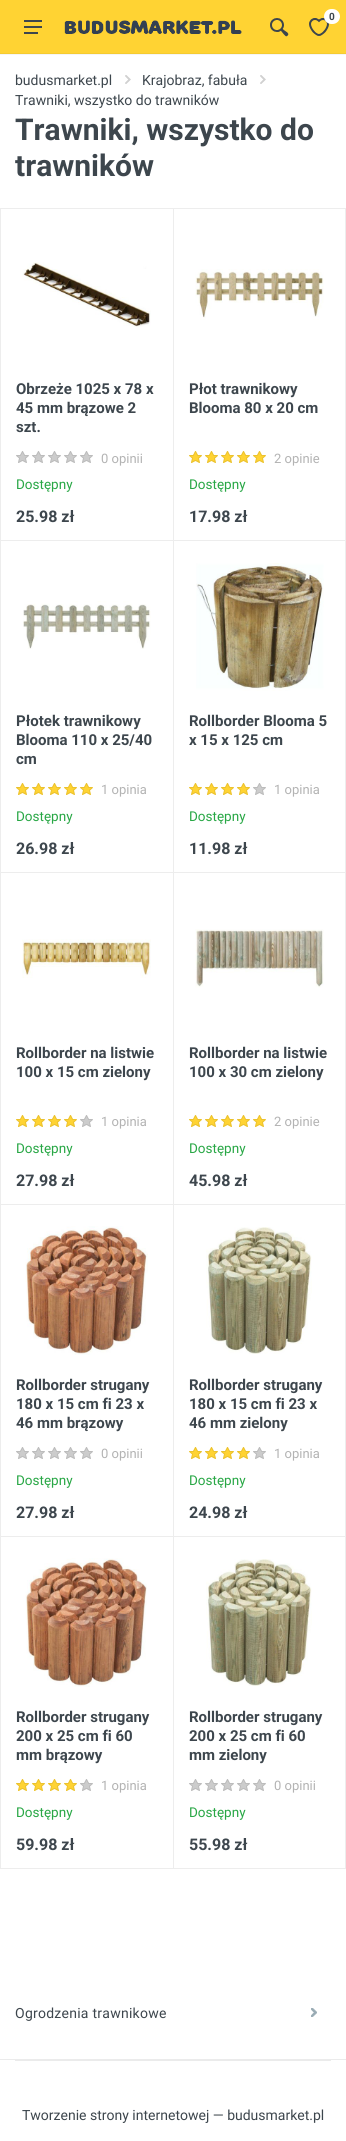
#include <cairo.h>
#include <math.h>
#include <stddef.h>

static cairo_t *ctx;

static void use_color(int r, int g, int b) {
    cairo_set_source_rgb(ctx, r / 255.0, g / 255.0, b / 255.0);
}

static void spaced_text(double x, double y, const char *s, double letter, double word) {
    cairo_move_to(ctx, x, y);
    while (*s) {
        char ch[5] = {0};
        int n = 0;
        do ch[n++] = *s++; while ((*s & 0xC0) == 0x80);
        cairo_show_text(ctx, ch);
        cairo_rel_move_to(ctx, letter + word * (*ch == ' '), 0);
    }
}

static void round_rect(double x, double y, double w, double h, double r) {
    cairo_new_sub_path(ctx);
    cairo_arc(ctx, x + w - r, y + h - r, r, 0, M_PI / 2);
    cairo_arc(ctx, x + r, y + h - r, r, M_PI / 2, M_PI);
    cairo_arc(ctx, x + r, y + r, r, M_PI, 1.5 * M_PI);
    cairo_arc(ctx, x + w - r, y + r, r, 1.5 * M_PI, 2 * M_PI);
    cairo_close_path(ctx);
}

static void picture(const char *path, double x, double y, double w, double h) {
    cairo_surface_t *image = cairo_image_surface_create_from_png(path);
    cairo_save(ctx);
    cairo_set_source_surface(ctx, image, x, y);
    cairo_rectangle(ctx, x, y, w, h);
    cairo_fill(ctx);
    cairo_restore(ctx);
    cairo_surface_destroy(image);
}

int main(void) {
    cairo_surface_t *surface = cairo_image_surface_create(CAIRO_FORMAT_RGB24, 346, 2141);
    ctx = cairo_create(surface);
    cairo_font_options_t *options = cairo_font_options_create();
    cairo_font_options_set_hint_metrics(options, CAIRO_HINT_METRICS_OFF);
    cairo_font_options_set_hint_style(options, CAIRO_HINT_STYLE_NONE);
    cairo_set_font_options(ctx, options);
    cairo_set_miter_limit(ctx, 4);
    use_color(255, 255, 255);
    cairo_paint(ctx);
    use_color(245, 245, 245);
    cairo_rectangle(ctx, 0, 54, 346, 1);
    cairo_fill(ctx);
    use_color(255, 211, 51);
    cairo_rectangle(ctx, 0, 0, 346, 53);
    cairo_fill(ctx);
    use_color(245, 203, 49);
    cairo_rectangle(ctx, 0, 53, 346, 1);
    cairo_fill(ctx);
    picture("img1.png", 309, 18, 20, 18);
    use_color(255, 255, 255);
    round_rect(324, 9, 16, 15, 7.5);
    cairo_fill(ctx);
    cairo_select_font_face(ctx, "Roboto", CAIRO_FONT_SLANT_NORMAL, CAIRO_FONT_WEIGHT_BOLD);
    cairo_set_font_size(ctx, 10);
    use_color(61, 70, 77);
    cairo_move_to(ctx, 329, 20);
    cairo_show_text(ctx, "0");
    picture("img2.png", 270, 18, 19, 19);
    picture("img3.png", 24, 20, 18, 14);
    picture("img4.png", 64, 20, 178, 14);
    cairo_select_font_face(ctx, "Roboto", CAIRO_FONT_SLANT_NORMAL, CAIRO_FONT_WEIGHT_NORMAL);
    cairo_set_font_size(ctx, 14);
    cairo_move_to(ctx, 15, 85);
    cairo_show_text(ctx, "budusmarket.pl");
    picture("img5.png", 125, 75, 6, 9);
    cairo_move_to(ctx, 142, 85);
    cairo_show_text(ctx, "Krajobraz, fabuła");
    picture("img5.png", 260, 75, 6, 9);
    cairo_move_to(ctx, 15, 105);
    cairo_show_text(ctx, "Trawniki, wszystko do trawników");
    cairo_select_font_face(ctx, "Roboto", CAIRO_FONT_SLANT_NORMAL, CAIRO_FONT_WEIGHT_BOLD);
    cairo_set_font_size(ctx, 30);
    cairo_move_to(ctx, 15, 140);
    cairo_show_text(ctx, "Trawniki, wszystko do");
    cairo_move_to(ctx, 15, 176);
    cairo_show_text(ctx, "trawników");
    picture("img6.png", 22, 262, 129, 65);
    picture("img7.png", 16, 451, 13, 12);
    picture("img7.png", 32, 451, 13, 12);
    picture("img7.png", 48, 451, 13, 12);
    picture("img7.png", 64, 451, 13, 12);
    picture("img7.png", 80, 451, 13, 12);
    cairo_rectangle(ctx, 0.5, 208.5, 173, 332);
    use_color(237, 237, 237);
    cairo_set_line_width(ctx, 1);
    cairo_stroke(ctx);
    cairo_set_font_size(ctx, 15);
    use_color(61, 70, 77);
    cairo_move_to(ctx, 16, 394);
    cairo_show_text(ctx, "Obrzeże 1025 x 78 x");
    cairo_move_to(ctx, 16, 413);
    cairo_show_text(ctx, "45 mm brązowe 2");
    cairo_move_to(ctx, 16, 432);
    cairo_show_text(ctx, "szt.");
    cairo_select_font_face(ctx, "Roboto", CAIRO_FONT_SLANT_NORMAL, CAIRO_FONT_WEIGHT_NORMAL);
    cairo_set_font_size(ctx, 13);
    use_color(179, 179, 179);
    cairo_move_to(ctx, 101, 463);
    cairo_show_text(ctx, "0 opinii");
    cairo_set_font_size(ctx, 13.5);
    use_color(40, 167, 69);
    cairo_move_to(ctx, 16, 489);
    cairo_show_text(ctx, "Dostępny");
    cairo_select_font_face(ctx, "Roboto", CAIRO_FONT_SLANT_NORMAL, CAIRO_FONT_WEIGHT_BOLD);
    cairo_set_font_size(ctx, 16);
    use_color(61, 70, 77);
    cairo_move_to(ctx, 16, 522);
    cairo_show_text(ctx, "25.98 zł");
    picture("img8.png", 195, 269, 129, 51);
    picture("img9.png", 189, 451, 13, 12);
    picture("img9.png", 205, 451, 13, 12);
    picture("img9.png", 221, 451, 13, 12);
    picture("img9.png", 237, 451, 13, 12);
    picture("img9.png", 253, 451, 13, 12);
    cairo_rectangle(ctx, 173.5, 208.5, 172, 332);
    use_color(237, 237, 237);
    cairo_stroke(ctx);
    cairo_set_font_size(ctx, 15);
    use_color(61, 70, 77);
    cairo_move_to(ctx, 189, 394);
    cairo_show_text(ctx, "Płot trawnikowy");
    cairo_move_to(ctx, 189, 413);
    cairo_show_text(ctx, "Blooma 80 x 20 cm");
    cairo_select_font_face(ctx, "Roboto", CAIRO_FONT_SLANT_NORMAL, CAIRO_FONT_WEIGHT_NORMAL);
    cairo_set_font_size(ctx, 13);
    use_color(179, 179, 179);
    cairo_move_to(ctx, 274, 463);
    cairo_show_text(ctx, "2 opinie");
    cairo_set_font_size(ctx, 13.5);
    use_color(40, 167, 69);
    cairo_move_to(ctx, 189, 489);
    cairo_show_text(ctx, "Dostępny");
    cairo_select_font_face(ctx, "Roboto", CAIRO_FONT_SLANT_NORMAL, CAIRO_FONT_WEIGHT_BOLD);
    cairo_set_font_size(ctx, 16);
    use_color(61, 70, 77);
    cairo_move_to(ctx, 189, 522);
    cairo_show_text(ctx, "17.98 zł");
    picture("img10.png", 23, 601, 128, 48);
    picture("img9.png", 16, 783, 13, 12);
    picture("img9.png", 32, 783, 13, 12);
    picture("img9.png", 48, 783, 13, 12);
    picture("img9.png", 64, 783, 13, 12);
    picture("img9.png", 80, 783, 13, 12);
    cairo_rectangle(ctx, 0.5, 540.5, 173, 332);
    use_color(237, 237, 237);
    cairo_stroke(ctx);
    cairo_set_font_size(ctx, 15);
    use_color(61, 70, 77);
    cairo_move_to(ctx, 16, 726);
    cairo_show_text(ctx, "Płotek trawnikowy");
    cairo_move_to(ctx, 16, 745);
    cairo_show_text(ctx, "Blooma 110 x 25/40");
    cairo_move_to(ctx, 16, 764);
    cairo_show_text(ctx, "cm");
    cairo_select_font_face(ctx, "Roboto", CAIRO_FONT_SLANT_NORMAL, CAIRO_FONT_WEIGHT_NORMAL);
    cairo_set_font_size(ctx, 13);
    use_color(179, 179, 179);
    cairo_move_to(ctx, 101, 794);
    cairo_show_text(ctx, "1 opinia");
    cairo_set_font_size(ctx, 13.5);
    use_color(40, 167, 69);
    cairo_move_to(ctx, 16, 821);
    cairo_show_text(ctx, "Dostępny");
    cairo_select_font_face(ctx, "Roboto", CAIRO_FONT_SLANT_NORMAL, CAIRO_FONT_WEIGHT_BOLD);
    cairo_set_font_size(ctx, 16);
    use_color(61, 70, 77);
    cairo_move_to(ctx, 16, 854);
    cairo_show_text(ctx, "26.98 zł");
    picture("img11.png", 196, 563, 128, 128);
    picture("img9.png", 189, 783, 13, 12);
    picture("img9.png", 205, 783, 13, 12);
    picture("img9.png", 221, 783, 13, 12);
    picture("img9.png", 237, 783, 13, 12);
    picture("img7.png", 253, 783, 13, 12);
    cairo_rectangle(ctx, 173.5, 540.5, 172, 332);
    use_color(237, 237, 237);
    cairo_stroke(ctx);
    cairo_set_font_size(ctx, 15);
    use_color(61, 70, 77);
    cairo_move_to(ctx, 189, 726);
    cairo_show_text(ctx, "Rollborder Blooma 5");
    cairo_move_to(ctx, 189, 745);
    cairo_show_text(ctx, "x 15 x 125 cm");
    cairo_select_font_face(ctx, "Roboto", CAIRO_FONT_SLANT_NORMAL, CAIRO_FONT_WEIGHT_NORMAL);
    cairo_set_font_size(ctx, 13);
    use_color(179, 179, 179);
    cairo_move_to(ctx, 274, 794);
    cairo_show_text(ctx, "1 opinia");
    cairo_set_font_size(ctx, 13.5);
    use_color(40, 167, 69);
    cairo_move_to(ctx, 189, 821);
    cairo_show_text(ctx, "Dostępny");
    cairo_select_font_face(ctx, "Roboto", CAIRO_FONT_SLANT_NORMAL, CAIRO_FONT_WEIGHT_BOLD);
    cairo_set_font_size(ctx, 16);
    use_color(61, 70, 77);
    cairo_move_to(ctx, 189, 854);
    cairo_show_text(ctx, "11.98 zł");
    picture("img12.png", 22, 939, 129, 39);
    picture("img9.png", 16, 1115, 13, 12);
    picture("img9.png", 32, 1115, 13, 12);
    picture("img9.png", 48, 1115, 13, 12);
    picture("img9.png", 64, 1115, 13, 12);
    picture("img7.png", 80, 1115, 13, 12);
    cairo_rectangle(ctx, 0.5, 872.5, 173, 332);
    use_color(237, 237, 237);
    cairo_stroke(ctx);
    cairo_set_font_size(ctx, 15);
    use_color(61, 70, 77);
    cairo_move_to(ctx, 16, 1058);
    cairo_show_text(ctx, "Rollborder na listwie");
    cairo_move_to(ctx, 16, 1077);
    cairo_show_text(ctx, "100 x 15 cm zielony");
    cairo_select_font_face(ctx, "Roboto", CAIRO_FONT_SLANT_NORMAL, CAIRO_FONT_WEIGHT_NORMAL);
    cairo_set_font_size(ctx, 13);
    use_color(179, 179, 179);
    cairo_move_to(ctx, 101, 1126);
    cairo_show_text(ctx, "1 opinia");
    cairo_set_font_size(ctx, 13.5);
    use_color(40, 167, 69);
    cairo_move_to(ctx, 16, 1153);
    cairo_show_text(ctx, "Dostępny");
    cairo_select_font_face(ctx, "Roboto", CAIRO_FONT_SLANT_NORMAL, CAIRO_FONT_WEIGHT_BOLD);
    cairo_set_font_size(ctx, 16);
    use_color(61, 70, 77);
    cairo_move_to(ctx, 16, 1186);
    cairo_show_text(ctx, "27.98 zł");
    picture("img13.png", 195, 929, 129, 59);
    picture("img9.png", 189, 1115, 13, 12);
    picture("img9.png", 205, 1115, 13, 12);
    picture("img9.png", 221, 1115, 13, 12);
    picture("img9.png", 237, 1115, 13, 12);
    picture("img9.png", 253, 1115, 13, 12);
    cairo_rectangle(ctx, 173.5, 872.5, 172, 332);
    use_color(237, 237, 237);
    cairo_stroke(ctx);
    cairo_set_font_size(ctx, 15);
    use_color(61, 70, 77);
    cairo_move_to(ctx, 189, 1058);
    cairo_show_text(ctx, "Rollborder na listwie");
    cairo_move_to(ctx, 189, 1077);
    cairo_show_text(ctx, "100 x 30 cm zielony");
    cairo_select_font_face(ctx, "Roboto", CAIRO_FONT_SLANT_NORMAL, CAIRO_FONT_WEIGHT_NORMAL);
    cairo_set_font_size(ctx, 13);
    use_color(179, 179, 179);
    cairo_move_to(ctx, 274, 1126);
    cairo_show_text(ctx, "2 opinie");
    cairo_set_font_size(ctx, 13.5);
    use_color(40, 167, 69);
    cairo_move_to(ctx, 189, 1153);
    cairo_show_text(ctx, "Dostępny");
    cairo_select_font_face(ctx, "Roboto", CAIRO_FONT_SLANT_NORMAL, CAIRO_FONT_WEIGHT_BOLD);
    cairo_set_font_size(ctx, 16);
    use_color(61, 70, 77);
    cairo_move_to(ctx, 189, 1186);
    cairo_show_text(ctx, "45.98 zł");
    picture("img14.png", 25, 1226, 123, 129);
    picture("img7.png", 16, 1447, 13, 12);
    picture("img7.png", 32, 1447, 13, 12);
    picture("img7.png", 48, 1447, 13, 12);
    picture("img7.png", 64, 1447, 13, 12);
    picture("img7.png", 80, 1447, 13, 12);
    cairo_rectangle(ctx, 0.5, 1204.5, 173, 332);
    use_color(237, 237, 237);
    cairo_stroke(ctx);
    cairo_set_font_size(ctx, 15);
    use_color(61, 70, 77);
    cairo_move_to(ctx, 16, 1390);
    cairo_show_text(ctx, "Rollborder strugany");
    cairo_move_to(ctx, 16, 1409);
    cairo_show_text(ctx, "180 x 15 cm fi 23 x");
    cairo_move_to(ctx, 16, 1428);
    cairo_show_text(ctx, "46 mm brązowy");
    cairo_select_font_face(ctx, "Roboto", CAIRO_FONT_SLANT_NORMAL, CAIRO_FONT_WEIGHT_NORMAL);
    cairo_set_font_size(ctx, 13);
    use_color(179, 179, 179);
    cairo_move_to(ctx, 101, 1458);
    cairo_show_text(ctx, "0 opinii");
    cairo_set_font_size(ctx, 13.5);
    use_color(40, 167, 69);
    cairo_move_to(ctx, 16, 1485);
    cairo_show_text(ctx, "Dostępny");
    cairo_select_font_face(ctx, "Roboto", CAIRO_FONT_SLANT_NORMAL, CAIRO_FONT_WEIGHT_BOLD);
    cairo_set_font_size(ctx, 16);
    use_color(61, 70, 77);
    cairo_move_to(ctx, 16, 1518);
    cairo_show_text(ctx, "27.98 zł");
    picture("img15.png", 206, 1227, 106, 127);
    picture("img9.png", 189, 1447, 13, 12);
    picture("img9.png", 205, 1447, 13, 12);
    picture("img9.png", 221, 1447, 13, 12);
    picture("img9.png", 237, 1447, 13, 12);
    picture("img7.png", 253, 1447, 13, 12);
    cairo_rectangle(ctx, 173.5, 1204.5, 172, 332);
    use_color(237, 237, 237);
    cairo_stroke(ctx);
    cairo_set_font_size(ctx, 15);
    use_color(61, 70, 77);
    cairo_move_to(ctx, 189, 1390);
    cairo_show_text(ctx, "Rollborder strugany");
    cairo_move_to(ctx, 189, 1409);
    cairo_show_text(ctx, "180 x 15 cm fi 23 x");
    cairo_move_to(ctx, 189, 1428);
    cairo_show_text(ctx, "46 mm zielony");
    cairo_select_font_face(ctx, "Roboto", CAIRO_FONT_SLANT_NORMAL, CAIRO_FONT_WEIGHT_NORMAL);
    cairo_set_font_size(ctx, 13);
    use_color(179, 179, 179);
    cairo_move_to(ctx, 274, 1458);
    cairo_show_text(ctx, "1 opinia");
    cairo_set_font_size(ctx, 13.5);
    use_color(40, 167, 69);
    cairo_move_to(ctx, 189, 1485);
    cairo_show_text(ctx, "Dostępny");
    cairo_select_font_face(ctx, "Roboto", CAIRO_FONT_SLANT_NORMAL, CAIRO_FONT_WEIGHT_BOLD);
    cairo_set_font_size(ctx, 16);
    use_color(61, 70, 77);
    cairo_move_to(ctx, 189, 1518);
    cairo_show_text(ctx, "24.98 zł");
    picture("img16.png", 25, 1558, 122, 129);
    picture("img9.png", 16, 1779, 13, 12);
    picture("img9.png", 32, 1779, 13, 12);
    picture("img9.png", 48, 1779, 13, 12);
    picture("img9.png", 64, 1779, 13, 12);
    picture("img7.png", 80, 1779, 13, 12);
    cairo_rectangle(ctx, 0.5, 1536.5, 173, 332);
    use_color(237, 237, 237);
    cairo_stroke(ctx);
    cairo_set_font_size(ctx, 15);
    use_color(61, 70, 77);
    cairo_move_to(ctx, 16, 1722);
    cairo_show_text(ctx, "Rollborder strugany");
    cairo_move_to(ctx, 16, 1741);
    cairo_show_text(ctx, "200 x 25 cm fi 60");
    cairo_move_to(ctx, 16, 1760);
    cairo_show_text(ctx, "mm brązowy");
    cairo_select_font_face(ctx, "Roboto", CAIRO_FONT_SLANT_NORMAL, CAIRO_FONT_WEIGHT_NORMAL);
    cairo_set_font_size(ctx, 13);
    use_color(179, 179, 179);
    cairo_move_to(ctx, 101, 1790);
    cairo_show_text(ctx, "1 opinia");
    cairo_set_font_size(ctx, 13.5);
    use_color(40, 167, 69);
    cairo_move_to(ctx, 16, 1817);
    cairo_show_text(ctx, "Dostępny");
    cairo_select_font_face(ctx, "Roboto", CAIRO_FONT_SLANT_NORMAL, CAIRO_FONT_WEIGHT_BOLD);
    cairo_set_font_size(ctx, 16);
    use_color(61, 70, 77);
    cairo_move_to(ctx, 16, 1850);
    cairo_show_text(ctx, "59.98 zł");
    picture("img15.png", 206, 1559, 106, 127);
    picture("img7.png", 189, 1779, 13, 12);
    picture("img7.png", 205, 1779, 13, 12);
    picture("img7.png", 221, 1779, 13, 12);
    picture("img7.png", 237, 1779, 13, 12);
    picture("img7.png", 253, 1779, 13, 12);
    cairo_rectangle(ctx, 173.5, 1536.5, 172, 332);
    use_color(237, 237, 237);
    cairo_stroke(ctx);
    cairo_set_font_size(ctx, 15);
    use_color(61, 70, 77);
    cairo_move_to(ctx, 189, 1722);
    cairo_show_text(ctx, "Rollborder strugany");
    cairo_move_to(ctx, 189, 1741);
    cairo_show_text(ctx, "200 x 25 cm fi 60");
    cairo_move_to(ctx, 189, 1760);
    cairo_show_text(ctx, "mm zielony");
    cairo_select_font_face(ctx, "Roboto", CAIRO_FONT_SLANT_NORMAL, CAIRO_FONT_WEIGHT_NORMAL);
    cairo_set_font_size(ctx, 13);
    use_color(179, 179, 179);
    cairo_move_to(ctx, 274, 1790);
    cairo_show_text(ctx, "0 opinii");
    cairo_set_font_size(ctx, 13.5);
    use_color(40, 167, 69);
    cairo_move_to(ctx, 189, 1817);
    cairo_show_text(ctx, "Dostępny");
    cairo_select_font_face(ctx, "Roboto", CAIRO_FONT_SLANT_NORMAL, CAIRO_FONT_WEIGHT_BOLD);
    cairo_set_font_size(ctx, 16);
    use_color(61, 70, 77);
    cairo_move_to(ctx, 189, 1850);
    cairo_show_text(ctx, "55.98 zł");
    cairo_select_font_face(ctx, "Roboto", CAIRO_FONT_SLANT_NORMAL, CAIRO_FONT_WEIGHT_NORMAL);
    cairo_set_font_size(ctx, 14);
    spaced_text(15, 2018, "Ogrodzenia trawnikowe", 0.25, 0);
    picture("img17.png", 311, 2008, 6, 9);
    use_color(235, 235, 235);
    cairo_rectangle(ctx, 0, 2059, 346, 1);
    cairo_fill(ctx);
    cairo_rectangle(ctx, 15, 2060, 316, 1);
    cairo_fill(ctx);
    use_color(61, 70, 77);
    cairo_move_to(ctx, 22, 2120);
    cairo_show_text(ctx, "Tworzenie strony internetowej — budusmarket.pl");
    cairo_surface_write_to_png(surface, "result.png");
    cairo_font_options_destroy(options);
    cairo_destroy(ctx);
    cairo_surface_destroy(surface);
    return 0;
}
